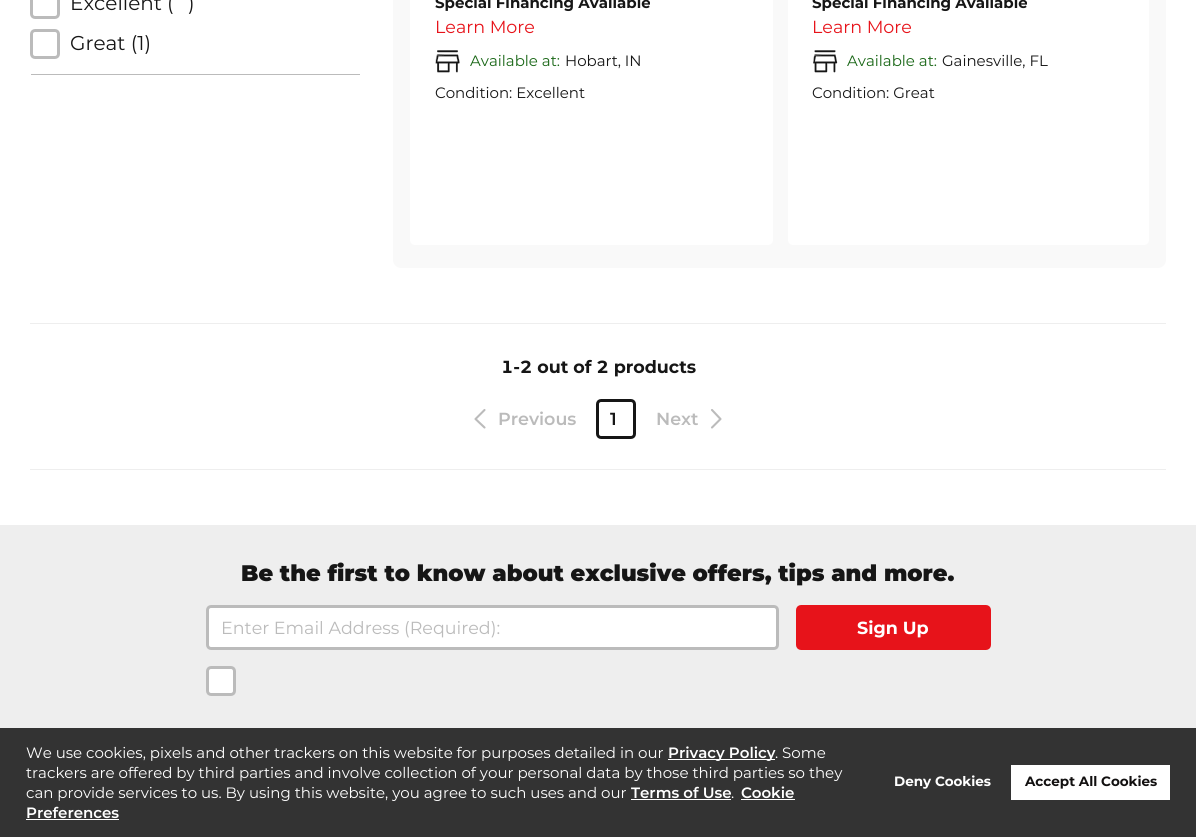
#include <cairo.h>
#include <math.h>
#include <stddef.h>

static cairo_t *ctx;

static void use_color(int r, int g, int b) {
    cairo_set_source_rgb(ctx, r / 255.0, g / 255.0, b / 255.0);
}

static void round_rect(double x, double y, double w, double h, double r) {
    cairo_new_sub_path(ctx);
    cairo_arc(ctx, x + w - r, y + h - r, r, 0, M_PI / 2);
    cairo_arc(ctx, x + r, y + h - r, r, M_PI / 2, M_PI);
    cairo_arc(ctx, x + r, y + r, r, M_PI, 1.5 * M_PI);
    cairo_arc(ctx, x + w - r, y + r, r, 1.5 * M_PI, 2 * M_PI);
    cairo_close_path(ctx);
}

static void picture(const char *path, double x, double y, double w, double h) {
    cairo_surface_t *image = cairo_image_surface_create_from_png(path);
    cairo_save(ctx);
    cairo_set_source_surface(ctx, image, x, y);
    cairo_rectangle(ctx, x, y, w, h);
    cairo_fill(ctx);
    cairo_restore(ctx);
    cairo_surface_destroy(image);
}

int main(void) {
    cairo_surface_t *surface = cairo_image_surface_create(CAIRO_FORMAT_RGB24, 1196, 837);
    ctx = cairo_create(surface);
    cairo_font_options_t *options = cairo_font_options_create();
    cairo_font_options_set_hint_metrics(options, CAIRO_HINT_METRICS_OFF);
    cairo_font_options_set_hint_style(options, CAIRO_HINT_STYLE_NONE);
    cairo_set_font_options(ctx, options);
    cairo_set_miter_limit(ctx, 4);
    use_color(255, 255, 255);
    cairo_paint(ctx);
    use_color(187, 187, 187);
    cairo_rectangle(ctx, 31, 74, 329, 1);
    cairo_fill(ctx);
    round_rect(31.5, -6.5, 27, 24, 3.5);
    cairo_set_line_width(ctx, 3);
    cairo_stroke(ctx);
    cairo_select_font_face(ctx, "Montserrat", CAIRO_FONT_SLANT_NORMAL, CAIRO_FONT_WEIGHT_NORMAL);
    cairo_set_font_size(ctx, 20);
    use_color(22, 22, 22);
    cairo_move_to(ctx, 70, 10);
    cairo_show_text(ctx, "Excellent (");
    cairo_move_to(ctx, 188, 10);
    cairo_show_text(ctx, ")");
    round_rect(31.5, 30.5, 27, 27, 3.5);
    use_color(187, 187, 187);
    cairo_stroke(ctx);
    use_color(22, 22, 22);
    cairo_move_to(ctx, 70, 50);
    cairo_show_text(ctx, "Great (1)");
    use_color(249, 249, 249);
    round_rect(393, -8, 773, 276, 8);
    cairo_fill(ctx);
    use_color(255, 255, 255);
    round_rect(410, -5, 363, 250, 5);
    cairo_fill(ctx);
    cairo_select_font_face(ctx, "Montserrat", CAIRO_FONT_SLANT_NORMAL, CAIRO_FONT_WEIGHT_BOLD);
    cairo_set_font_size(ctx, 15);
    use_color(22, 22, 22);
    cairo_move_to(ctx, 435, 8);
    cairo_show_text(ctx, "Special Financing Available");
    cairo_select_font_face(ctx, "Montserrat", CAIRO_FONT_SLANT_NORMAL, CAIRO_FONT_WEIGHT_NORMAL);
    cairo_set_font_size(ctx, 17.5);
    use_color(231, 19, 26);
    cairo_move_to(ctx, 435, 33);
    cairo_show_text(ctx, "Learn More");
    picture("img1.png", 435, 50, 25, 23);
    cairo_set_font_size(ctx, 15);
    use_color(24, 102, 21);
    cairo_move_to(ctx, 470, 66);
    cairo_show_text(ctx, "Available at:");
    use_color(22, 22, 22);
    cairo_move_to(ctx, 565, 66);
    cairo_show_text(ctx, "Hobart, IN");
    cairo_move_to(ctx, 435, 98);
    cairo_show_text(ctx, "Condition: Excellent");
    use_color(255, 255, 255);
    round_rect(788, -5, 361, 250, 5);
    cairo_fill(ctx);
    cairo_select_font_face(ctx, "Montserrat", CAIRO_FONT_SLANT_NORMAL, CAIRO_FONT_WEIGHT_BOLD);
    use_color(22, 22, 22);
    cairo_move_to(ctx, 812, 8);
    cairo_show_text(ctx, "Special Financing Available");
    cairo_select_font_face(ctx, "Montserrat", CAIRO_FONT_SLANT_NORMAL, CAIRO_FONT_WEIGHT_NORMAL);
    cairo_set_font_size(ctx, 17.5);
    use_color(231, 19, 26);
    cairo_move_to(ctx, 812, 33);
    cairo_show_text(ctx, "Learn More");
    picture("img2.png", 813, 50, 25, 23);
    cairo_set_font_size(ctx, 15);
    use_color(24, 102, 21);
    cairo_move_to(ctx, 847, 66);
    cairo_show_text(ctx, "Available at:");
    use_color(22, 22, 22);
    cairo_move_to(ctx, 942, 66);
    cairo_show_text(ctx, "Gainesville, FL");
    cairo_move_to(ctx, 812, 98);
    cairo_show_text(ctx, "Condition: Great");
    use_color(238, 238, 238);
    cairo_rectangle(ctx, 30, 323, 1136, 1);
    cairo_fill(ctx);
    cairo_select_font_face(ctx, "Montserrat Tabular", CAIRO_FONT_SLANT_NORMAL, CAIRO_FONT_WEIGHT_BOLD);
    cairo_set_font_size(ctx, 17.5);
    use_color(22, 22, 22);
    cairo_move_to(ctx, 501, 373);
    cairo_show_text(ctx, "1-2 out of 2 products");
    use_color(238, 238, 238);
    cairo_rectangle(ctx, 30, 469, 1136, 1);
    cairo_fill(ctx);
    cairo_new_path(ctx);
    cairo_move_to(ctx, 484.5, 427.5);
    cairo_line_to(ctx, 475.5, 419);
    cairo_line_to(ctx, 484.5, 410);
    use_color(187, 187, 187);
    cairo_set_line_width(ctx, 2.1);
    cairo_set_line_cap(ctx, CAIRO_LINE_CAP_ROUND);
    cairo_set_line_join(ctx, CAIRO_LINE_JOIN_ROUND);
    cairo_stroke(ctx);
    cairo_select_font_face(ctx, "Montserrat SemiBold", CAIRO_FONT_SLANT_NORMAL, CAIRO_FONT_WEIGHT_NORMAL);
    cairo_move_to(ctx, 498, 425);
    cairo_show_text(ctx, "Previous");
    round_rect(597.5, 400.5, 37, 37, 3.5);
    use_color(22, 22, 22);
    cairo_set_line_width(ctx, 3);
    cairo_set_line_cap(ctx, CAIRO_LINE_CAP_BUTT);
    cairo_set_line_join(ctx, CAIRO_LINE_JOIN_MITER);
    cairo_stroke(ctx);
    cairo_move_to(ctx, 610, 425);
    cairo_show_text(ctx, "1");
    use_color(187, 187, 187);
    cairo_move_to(ctx, 656, 425);
    cairo_show_text(ctx, "Next");
    cairo_new_path(ctx);
    cairo_move_to(ctx, 712, 410);
    cairo_line_to(ctx, 720.5, 419);
    cairo_line_to(ctx, 712, 427.5);
    cairo_set_line_width(ctx, 2.1);
    cairo_set_line_cap(ctx, CAIRO_LINE_CAP_ROUND);
    cairo_set_line_join(ctx, CAIRO_LINE_JOIN_ROUND);
    cairo_stroke(ctx);
    use_color(238, 238, 238);
    cairo_rectangle(ctx, 0, 525, 1196, 203);
    cairo_fill(ctx);
    cairo_select_font_face(ctx, "Montserrat Black", CAIRO_FONT_SLANT_NORMAL, CAIRO_FONT_WEIGHT_NORMAL);
    cairo_set_font_size(ctx, 22.5);
    use_color(22, 22, 22);
    cairo_move_to(ctx, 241, 581);
    cairo_show_text(ctx, "Be the first to know about exclusive offers, tips and more.");
    use_color(255, 255, 255);
    round_rect(207.5, 606.5, 570, 42, 3.5);
    cairo_fill_preserve(ctx);
    use_color(187, 187, 187);
    cairo_set_line_width(ctx, 3);
    cairo_set_line_cap(ctx, CAIRO_LINE_CAP_BUTT);
    cairo_set_line_join(ctx, CAIRO_LINE_JOIN_MITER);
    cairo_stroke(ctx);
    cairo_select_font_face(ctx, "Montserrat", CAIRO_FONT_SLANT_NORMAL, CAIRO_FONT_WEIGHT_NORMAL);
    cairo_set_font_size(ctx, 17.5);
    cairo_move_to(ctx, 221, 634);
    cairo_show_text(ctx, "Enter Email Address (Required):");
    use_color(255, 255, 255);
    round_rect(207.5, 667.5, 27, 27, 3.5);
    cairo_fill_preserve(ctx);
    use_color(187, 187, 187);
    cairo_stroke(ctx);
    use_color(231, 19, 26);
    round_rect(797.5, 606.5, 192, 42, 3.5);
    cairo_fill_preserve(ctx);
    cairo_stroke(ctx);
    cairo_select_font_face(ctx, "Montserrat", CAIRO_FONT_SLANT_NORMAL, CAIRO_FONT_WEIGHT_BOLD);
    use_color(255, 255, 255);
    cairo_move_to(ctx, 857, 634);
    cairo_show_text(ctx, "Sign Up");
    use_color(51, 51, 51);
    cairo_rectangle(ctx, 0, 728, 1196, 109);
    cairo_fill(ctx);
    cairo_select_font_face(ctx, "Montserrat", CAIRO_FONT_SLANT_NORMAL, CAIRO_FONT_WEIGHT_NORMAL);
    cairo_set_font_size(ctx, 15);
    use_color(255, 255, 255);
    cairo_move_to(ctx, 26, 758);
    cairo_show_text(ctx, "We use cookies, pixels and other trackers on this website for purposes detailed in our");
    cairo_rectangle(ctx, 668, 759, 107, 1);
    cairo_fill(ctx);
    cairo_select_font_face(ctx, "Montserrat SemiBold", CAIRO_FONT_SLANT_NORMAL, CAIRO_FONT_WEIGHT_NORMAL);
    cairo_move_to(ctx, 668, 758);
    cairo_show_text(ctx, "Privacy Policy");
    cairo_select_font_face(ctx, "Montserrat", CAIRO_FONT_SLANT_NORMAL, CAIRO_FONT_WEIGHT_NORMAL);
    cairo_move_to(ctx, 775, 758);
    cairo_show_text(ctx, ". Some");
    cairo_move_to(ctx, 26, 778);
    cairo_show_text(ctx, "trackers are offered by third parties and involve collection of your personal data by those third parties so they");
    cairo_move_to(ctx, 26, 798);
    cairo_show_text(ctx, "can provide services to us. By using this website, you agree to such uses and our");
    cairo_select_font_face(ctx, "Montserrat SemiBold", CAIRO_FONT_SLANT_NORMAL, CAIRO_FONT_WEIGHT_NORMAL);
    cairo_move_to(ctx, 631, 798);
    cairo_show_text(ctx, "Terms of Use");
    cairo_rectangle(ctx, 631, 799, 100, 1);
    cairo_fill(ctx);
    cairo_select_font_face(ctx, "Montserrat", CAIRO_FONT_SLANT_NORMAL, CAIRO_FONT_WEIGHT_NORMAL);
    cairo_move_to(ctx, 731, 798);
    cairo_show_text(ctx, ".");
    cairo_select_font_face(ctx, "Montserrat SemiBold", CAIRO_FONT_SLANT_NORMAL, CAIRO_FONT_WEIGHT_NORMAL);
    cairo_move_to(ctx, 741, 798);
    cairo_show_text(ctx, "Cookie");
    cairo_rectangle(ctx, 741, 799, 54, 1);
    cairo_fill(ctx);
    cairo_move_to(ctx, 26, 818);
    cairo_show_text(ctx, "Preferences");
    cairo_rectangle(ctx, 26, 819, 93, 1);
    cairo_fill(ctx);
    cairo_select_font_face(ctx, "Montserrat", CAIRO_FONT_SLANT_NORMAL, CAIRO_FONT_WEIGHT_BOLD);
    cairo_set_font_size(ctx, 13.5);
    cairo_move_to(ctx, 894, 786);
    cairo_show_text(ctx, "Deny Cookies");
    cairo_rectangle(ctx, 1011, 765, 159, 35);
    cairo_fill(ctx);
    use_color(18, 16, 16);
    cairo_move_to(ctx, 1025, 786);
    cairo_show_text(ctx, "Accept All Cookies");
    cairo_surface_write_to_png(surface, "result.png");
    cairo_font_options_destroy(options);
    cairo_destroy(ctx);
    cairo_surface_destroy(surface);
    return 0;
}
